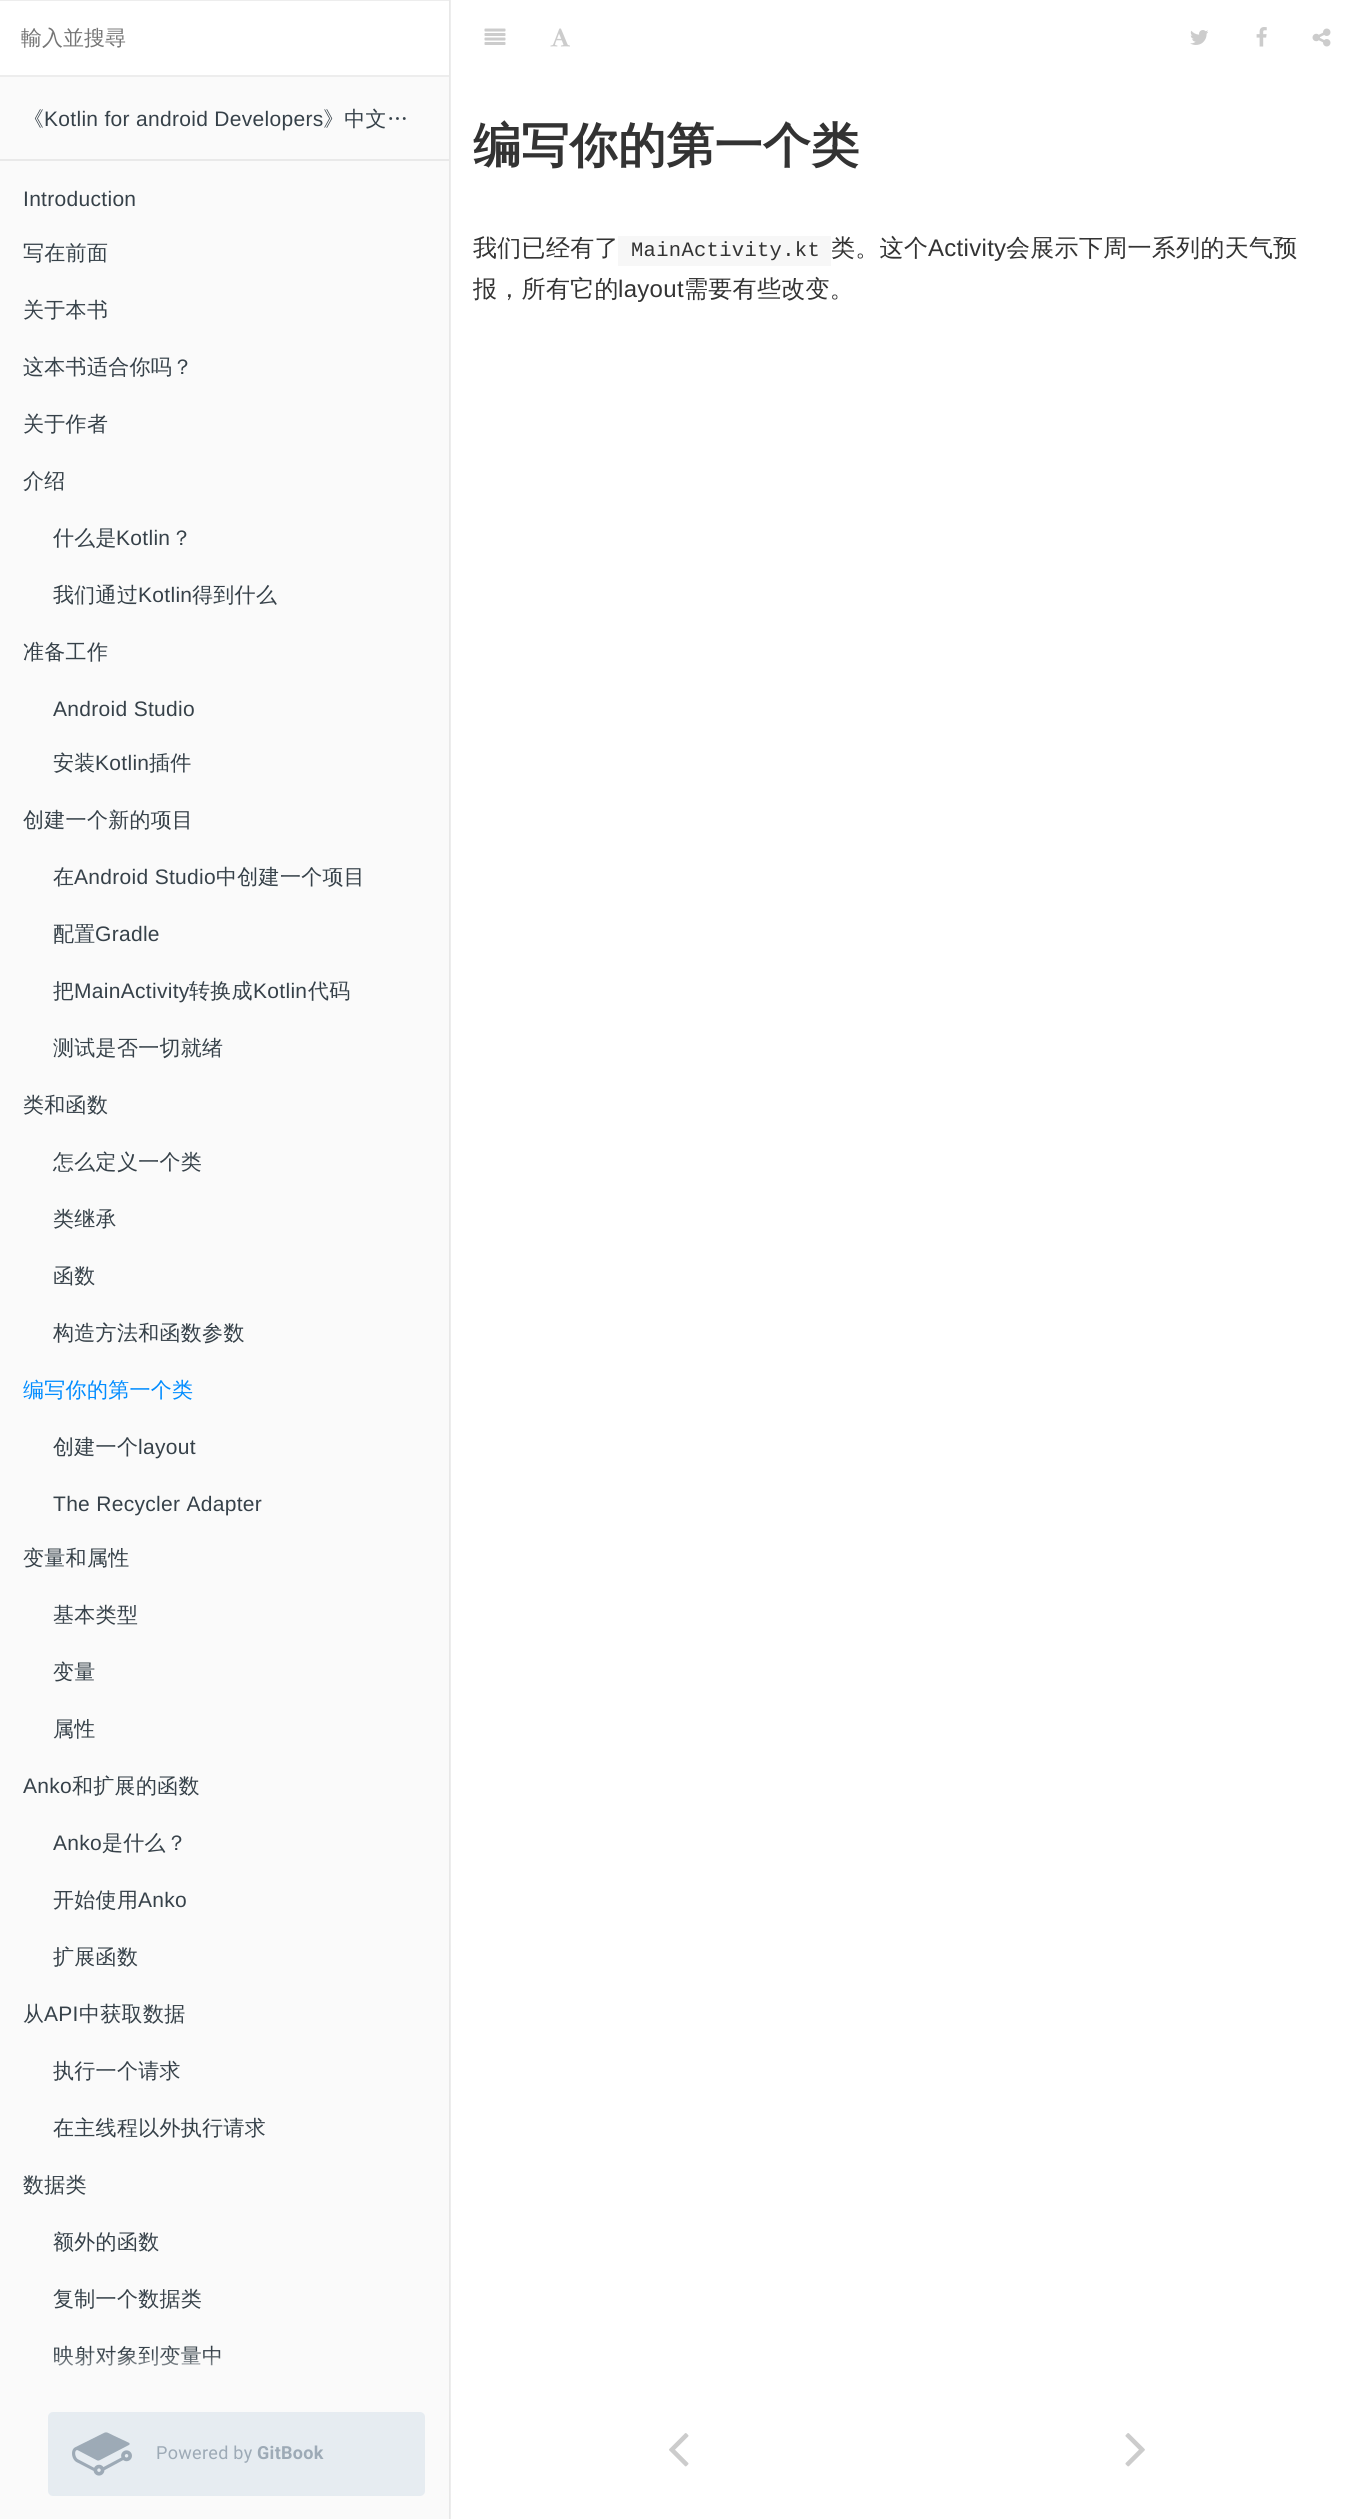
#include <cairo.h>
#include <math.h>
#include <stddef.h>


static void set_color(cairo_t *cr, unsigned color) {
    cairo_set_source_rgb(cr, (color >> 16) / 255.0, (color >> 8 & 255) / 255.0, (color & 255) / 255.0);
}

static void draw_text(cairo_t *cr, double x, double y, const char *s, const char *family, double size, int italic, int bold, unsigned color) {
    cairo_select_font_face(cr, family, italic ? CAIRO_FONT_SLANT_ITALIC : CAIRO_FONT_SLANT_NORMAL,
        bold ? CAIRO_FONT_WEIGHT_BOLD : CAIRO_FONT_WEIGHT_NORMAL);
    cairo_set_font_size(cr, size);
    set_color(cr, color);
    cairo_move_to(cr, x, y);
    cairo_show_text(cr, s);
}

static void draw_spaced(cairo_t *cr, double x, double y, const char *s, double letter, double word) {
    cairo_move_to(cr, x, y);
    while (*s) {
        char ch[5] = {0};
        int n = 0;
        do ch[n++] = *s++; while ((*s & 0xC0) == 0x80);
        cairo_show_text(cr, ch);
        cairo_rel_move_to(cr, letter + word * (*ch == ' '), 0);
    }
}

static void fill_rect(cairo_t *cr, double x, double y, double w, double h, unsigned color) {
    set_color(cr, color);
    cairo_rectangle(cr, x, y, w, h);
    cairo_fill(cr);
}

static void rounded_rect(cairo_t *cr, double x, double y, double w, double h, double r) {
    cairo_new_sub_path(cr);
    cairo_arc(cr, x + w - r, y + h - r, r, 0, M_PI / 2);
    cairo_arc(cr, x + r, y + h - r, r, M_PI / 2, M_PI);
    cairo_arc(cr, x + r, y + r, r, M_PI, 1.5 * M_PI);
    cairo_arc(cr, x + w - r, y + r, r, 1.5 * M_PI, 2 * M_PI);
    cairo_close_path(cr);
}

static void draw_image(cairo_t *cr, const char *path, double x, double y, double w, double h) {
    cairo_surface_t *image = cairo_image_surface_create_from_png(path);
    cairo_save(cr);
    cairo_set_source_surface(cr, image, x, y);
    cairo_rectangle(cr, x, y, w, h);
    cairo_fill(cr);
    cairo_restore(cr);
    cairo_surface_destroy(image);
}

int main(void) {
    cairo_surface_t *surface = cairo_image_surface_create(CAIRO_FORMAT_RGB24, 1365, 2519);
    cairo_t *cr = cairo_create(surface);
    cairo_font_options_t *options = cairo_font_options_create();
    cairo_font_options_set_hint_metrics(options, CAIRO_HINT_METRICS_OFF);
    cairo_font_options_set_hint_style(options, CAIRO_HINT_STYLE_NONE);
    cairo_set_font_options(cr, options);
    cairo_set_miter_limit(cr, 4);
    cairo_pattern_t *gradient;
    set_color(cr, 0xFFFFFF);
    cairo_paint(cr);
    fill_rect(cr, 450, 0, 1, 2519, 0xEDEDED);
    fill_rect(cr, 0, 77, 449, 2442, 0xFAFAFA);
    fill_rect(cr, 449, 0, 1, 2519, 0xE8E8E8);
    fill_rect(cr, 0, 0, 449, 1, 0xEDEDED);
    fill_rect(cr, 0, 75, 449, 2, 0xEDEDED);
    draw_text(cr, 21, 45, "輸入並搜尋", "WenQuanYi Zen Hei Medium", 21, 0, 0, 0x757575);
    set_color(cr, 0x364149);
    draw_spaced(cr, 23, 126, "《", 0.3, 0);
    cairo_select_font_face(cr, "Liberation Sans", CAIRO_FONT_SLANT_NORMAL, CAIRO_FONT_WEIGHT_NORMAL);
    draw_spaced(cr, 44, 126, "Kotlin for android Developers", 0.3, 0);
    cairo_select_font_face(cr, "WenQuanYi Zen Hei Medium", CAIRO_FONT_SLANT_NORMAL, CAIRO_FONT_WEIGHT_NORMAL);
    draw_spaced(cr, 323, 126, "》中文…", 0.3, 0);
    fill_rect(cr, 0, 159, 449, 2, 0xE9E9E9);
    cairo_select_font_face(cr, "Liberation Sans", CAIRO_FONT_SLANT_NORMAL, CAIRO_FONT_WEIGHT_NORMAL);
    set_color(cr, 0x364149);
    draw_spaced(cr, 23, 206, "Introduction", 0.3, 0);
    cairo_select_font_face(cr, "WenQuanYi Zen Hei Medium", CAIRO_FONT_SLANT_NORMAL, CAIRO_FONT_WEIGHT_NORMAL);
    draw_spaced(cr, 23, 260, "写在前面", 0.3, 0);
    draw_spaced(cr, 23, 317, "关于本书", 0.3, 0);
    draw_spaced(cr, 23, 374, "这本书适合你吗？", 0.3, 0);
    draw_spaced(cr, 23, 431, "关于作者", 0.3, 0);
    draw_spaced(cr, 23, 488, "介绍", 0.3, 0);
    draw_spaced(cr, 53, 545, "什么是", 0.3, 0);
    cairo_select_font_face(cr, "Liberation Sans", CAIRO_FONT_SLANT_NORMAL, CAIRO_FONT_WEIGHT_NORMAL);
    draw_spaced(cr, 116, 545, "Kotlin", 0.3, 0);
    cairo_select_font_face(cr, "WenQuanYi Zen Hei Medium", CAIRO_FONT_SLANT_NORMAL, CAIRO_FONT_WEIGHT_NORMAL);
    draw_spaced(cr, 171, 545, "？", 0.3, 0);
    draw_spaced(cr, 53, 602, "我们通过", 0.3, 0);
    cairo_select_font_face(cr, "Liberation Sans", CAIRO_FONT_SLANT_NORMAL, CAIRO_FONT_WEIGHT_NORMAL);
    draw_spaced(cr, 138, 602, "Kotlin", 0.3, 0);
    cairo_select_font_face(cr, "WenQuanYi Zen Hei Medium", CAIRO_FONT_SLANT_NORMAL, CAIRO_FONT_WEIGHT_NORMAL);
    draw_spaced(cr, 192, 602, "得到什么", 0.3, 0);
    draw_spaced(cr, 23, 659, "准备工作", 0.3, 0);
    cairo_select_font_face(cr, "Liberation Sans", CAIRO_FONT_SLANT_NORMAL, CAIRO_FONT_WEIGHT_NORMAL);
    draw_spaced(cr, 53, 716, "Android Studio", 0.3, 0);
    cairo_select_font_face(cr, "WenQuanYi Zen Hei Medium", CAIRO_FONT_SLANT_NORMAL, CAIRO_FONT_WEIGHT_NORMAL);
    draw_spaced(cr, 53, 770, "安装", 0.3, 0);
    cairo_select_font_face(cr, "Liberation Sans", CAIRO_FONT_SLANT_NORMAL, CAIRO_FONT_WEIGHT_NORMAL);
    draw_spaced(cr, 95, 770, "Kotlin", 0.3, 0);
    cairo_select_font_face(cr, "WenQuanYi Zen Hei Medium", CAIRO_FONT_SLANT_NORMAL, CAIRO_FONT_WEIGHT_NORMAL);
    draw_spaced(cr, 149, 770, "插件", 0.3, 0);
    draw_spaced(cr, 23, 827, "创建一个新的项目", 0.3, 0);
    draw_spaced(cr, 53, 884, "在", 0.3, 0);
    cairo_select_font_face(cr, "Liberation Sans", CAIRO_FONT_SLANT_NORMAL, CAIRO_FONT_WEIGHT_NORMAL);
    draw_spaced(cr, 74, 884, "Android Studio", 0.3, 0);
    cairo_select_font_face(cr, "WenQuanYi Zen Hei Medium", CAIRO_FONT_SLANT_NORMAL, CAIRO_FONT_WEIGHT_NORMAL);
    draw_spaced(cr, 216, 884, "中创建一个项目", 0.3, 0);
    draw_spaced(cr, 53, 941, "配置", 0.3, 0);
    cairo_select_font_face(cr, "Liberation Sans", CAIRO_FONT_SLANT_NORMAL, CAIRO_FONT_WEIGHT_NORMAL);
    draw_spaced(cr, 95, 941, "Gradle", 0.3, 0);
    cairo_select_font_face(cr, "WenQuanYi Zen Hei Medium", CAIRO_FONT_SLANT_NORMAL, CAIRO_FONT_WEIGHT_NORMAL);
    draw_spaced(cr, 53, 998, "把", 0.3, 0);
    cairo_select_font_face(cr, "Liberation Sans", CAIRO_FONT_SLANT_NORMAL, CAIRO_FONT_WEIGHT_NORMAL);
    draw_spaced(cr, 74, 998, "MainActivity", 0.3, 0);
    cairo_select_font_face(cr, "WenQuanYi Zen Hei Medium", CAIRO_FONT_SLANT_NORMAL, CAIRO_FONT_WEIGHT_NORMAL);
    draw_spaced(cr, 189, 998, "转换成", 0.3, 0);
    cairo_select_font_face(cr, "Liberation Sans", CAIRO_FONT_SLANT_NORMAL, CAIRO_FONT_WEIGHT_NORMAL);
    draw_spaced(cr, 253, 998, "Kotlin", 0.3, 0);
    cairo_select_font_face(cr, "WenQuanYi Zen Hei Medium", CAIRO_FONT_SLANT_NORMAL, CAIRO_FONT_WEIGHT_NORMAL);
    draw_spaced(cr, 308, 998, "代码", 0.3, 0);
    draw_spaced(cr, 53, 1055, "测试是否一切就绪", 0.3, 0);
    draw_spaced(cr, 23, 1112, "类和函数", 0.3, 0);
    draw_spaced(cr, 53, 1169, "怎么定义一个类", 0.3, 0);
    draw_spaced(cr, 53, 1226, "类继承", 0.3, 0);
    draw_spaced(cr, 53, 1283, "函数", 0.3, 0);
    draw_spaced(cr, 53, 1340, "构造方法和函数参数", 0.3, 0);
    set_color(cr, 0x008CFF);
    draw_spaced(cr, 23, 1397, "编写你的第一个类", 0.3, 0);
    set_color(cr, 0x364149);
    draw_spaced(cr, 53, 1454, "创建一个", 0.3, 0);
    cairo_select_font_face(cr, "Liberation Sans", CAIRO_FONT_SLANT_NORMAL, CAIRO_FONT_WEIGHT_NORMAL);
    draw_spaced(cr, 138, 1454, "layout", 0.3, 0);
    draw_spaced(cr, 53, 1511, "The Recycler Adapter", 0.3, 0);
    cairo_select_font_face(cr, "WenQuanYi Zen Hei Medium", CAIRO_FONT_SLANT_NORMAL, CAIRO_FONT_WEIGHT_NORMAL);
    draw_spaced(cr, 23, 1565, "变量和属性", 0.3, 0);
    draw_spaced(cr, 53, 1622, "基本类型", 0.3, 0);
    draw_spaced(cr, 53, 1679, "变量", 0.3, 0);
    draw_spaced(cr, 53, 1736, "属性", 0.3, 0);
    cairo_select_font_face(cr, "Liberation Sans", CAIRO_FONT_SLANT_NORMAL, CAIRO_FONT_WEIGHT_NORMAL);
    draw_spaced(cr, 23, 1793, "Anko", 0.3, 0);
    cairo_select_font_face(cr, "WenQuanYi Zen Hei Medium", CAIRO_FONT_SLANT_NORMAL, CAIRO_FONT_WEIGHT_NORMAL);
    draw_spaced(cr, 72, 1793, "和扩展的函数", 0.3, 0);
    cairo_select_font_face(cr, "Liberation Sans", CAIRO_FONT_SLANT_NORMAL, CAIRO_FONT_WEIGHT_NORMAL);
    draw_spaced(cr, 53, 1850, "Anko", 0.3, 0);
    cairo_select_font_face(cr, "WenQuanYi Zen Hei Medium", CAIRO_FONT_SLANT_NORMAL, CAIRO_FONT_WEIGHT_NORMAL);
    draw_spaced(cr, 102, 1850, "是什么？", 0.3, 0);
    draw_spaced(cr, 53, 1907, "开始使用", 0.3, 0);
    cairo_select_font_face(cr, "Liberation Sans", CAIRO_FONT_SLANT_NORMAL, CAIRO_FONT_WEIGHT_NORMAL);
    draw_spaced(cr, 138, 1907, "Anko", 0.3, 0);
    cairo_select_font_face(cr, "WenQuanYi Zen Hei Medium", CAIRO_FONT_SLANT_NORMAL, CAIRO_FONT_WEIGHT_NORMAL);
    draw_spaced(cr, 53, 1964, "扩展函数", 0.3, 0);
    draw_spaced(cr, 23, 2021, "从", 0.3, 0);
    cairo_select_font_face(cr, "Liberation Sans", CAIRO_FONT_SLANT_NORMAL, CAIRO_FONT_WEIGHT_NORMAL);
    draw_spaced(cr, 44, 2021, "API", 0.3, 0);
    cairo_select_font_face(cr, "WenQuanYi Zen Hei Medium", CAIRO_FONT_SLANT_NORMAL, CAIRO_FONT_WEIGHT_NORMAL);
    draw_spaced(cr, 79, 2021, "中获取数据", 0.3, 0);
    draw_spaced(cr, 53, 2078, "执行一个请求", 0.3, 0);
    draw_spaced(cr, 53, 2135, "在主线程以外执行请求", 0.3, 0);
    draw_spaced(cr, 23, 2192, "数据类", 0.3, 0);
    draw_spaced(cr, 53, 2249, "额外的函数", 0.3, 0);
    draw_spaced(cr, 53, 2306, "复制一个数据类", 0.3, 0);
    draw_spaced(cr, 53, 2363, "映射对象到变量中", 0.3, 0);
    gradient = cairo_pattern_create_linear(224, 2352, 224, 2388);
    cairo_pattern_add_color_stop_rgba(gradient, 0, 0.98, 0.98, 0.98, 0);
    cairo_pattern_add_color_stop_rgba(gradient, 1, 0.98, 0.98, 0.98, 1);
    cairo_set_source(cr, gradient);
    cairo_pattern_destroy(gradient);
    cairo_rectangle(cr, 53, 2353, 167, 13);
    cairo_fill(cr);
    set_color(cr, 0xE6ECF1);
    rounded_rect(cr, 48, 2412, 377, 84, 5);
    cairo_fill(cr);
    draw_image(cr, "assets/img1.png", 72, 2432, 60, 44);
    cairo_select_font_face(cr, "Roboto", CAIRO_FONT_SLANT_NORMAL, CAIRO_FONT_WEIGHT_NORMAL);
    cairo_set_font_size(cr, 18);
    set_color(cr, 0x9DAAB6);
    draw_spaced(cr, 156, 2459, "Powered by", 0.3, 0);
    cairo_select_font_face(cr, "Roboto", CAIRO_FONT_SLANT_NORMAL, CAIRO_FONT_WEIGHT_BOLD);
    draw_spaced(cr, 257, 2459, "GitBook", 0.3, 0);
    draw_image(cr, "assets/img2.png", 484, 28, 22, 17);
    draw_image(cr, "assets/img3.png", 550, 28, 20, 19);
    draw_image(cr, "assets/img4.png", 1190, 30, 18, 15);
    draw_image(cr, "assets/img5.png", 1256, 27, 11, 20);
    draw_image(cr, "assets/img6.png", 1312, 28, 19, 19);
    cairo_select_font_face(cr, "WenQuanYi Zen Hei", CAIRO_FONT_SLANT_NORMAL, CAIRO_FONT_WEIGHT_BOLD);
    cairo_set_font_size(cr, 48);
    set_color(cr, 0x333333);
    draw_spaced(cr, 473, 162, "编写你的第一个类", 0.3, 0);
    cairo_select_font_face(cr, "WenQuanYi Zen Hei Medium", CAIRO_FONT_SLANT_NORMAL, CAIRO_FONT_WEIGHT_NORMAL);
    cairo_set_font_size(cr, 24);
    draw_spaced(cr, 473, 256, "我们已经有了", 0.3, 0);
    fill_rect(cr, 618, 236, 213, 30, 0xF7F7F7);
    cairo_select_font_face(cr, "Liberation Mono", CAIRO_FONT_SLANT_NORMAL, CAIRO_FONT_WEIGHT_NORMAL);
    cairo_set_font_size(cr, 20.5);
    set_color(cr, 0x333333);
    draw_spaced(cr, 631, 256, "MainActivity.kt", 0.3, 0);
    cairo_select_font_face(cr, "WenQuanYi Zen Hei Medium", CAIRO_FONT_SLANT_NORMAL, CAIRO_FONT_WEIGHT_NORMAL);
    cairo_set_font_size(cr, 24);
    draw_spaced(cr, 831, 256, "类。这个", 0.3, 0);
    cairo_select_font_face(cr, "Liberation Sans", CAIRO_FONT_SLANT_NORMAL, CAIRO_FONT_WEIGHT_NORMAL);
    draw_spaced(cr, 928, 256, "Activity", 0.3, 0);
    cairo_select_font_face(cr, "WenQuanYi Zen Hei Medium", CAIRO_FONT_SLANT_NORMAL, CAIRO_FONT_WEIGHT_NORMAL);
    draw_spaced(cr, 1006, 256, "会展示下周一系列的天气预", 0.3, 0);
    draw_spaced(cr, 473, 297, "报，所有它的", 0.3, 0);
    cairo_select_font_face(cr, "Liberation Sans", CAIRO_FONT_SLANT_NORMAL, CAIRO_FONT_WEIGHT_NORMAL);
    draw_spaced(cr, 618, 297, "layout", 0.3, 0);
    cairo_select_font_face(cr, "WenQuanYi Zen Hei Medium", CAIRO_FONT_SLANT_NORMAL, CAIRO_FONT_WEIGHT_NORMAL);
    draw_spaced(cr, 684, 297, "需要有些改变。", 0.3, 0);
    draw_image(cr, "assets/img7.png", 669, 2433, 20, 34);
    draw_image(cr, "assets/img8.png", 1125, 2433, 20, 34);
    cairo_surface_write_to_png(surface, "output.png");
    cairo_font_options_destroy(options);
    cairo_destroy(cr);
    cairo_surface_destroy(surface);
    return 0;
}
